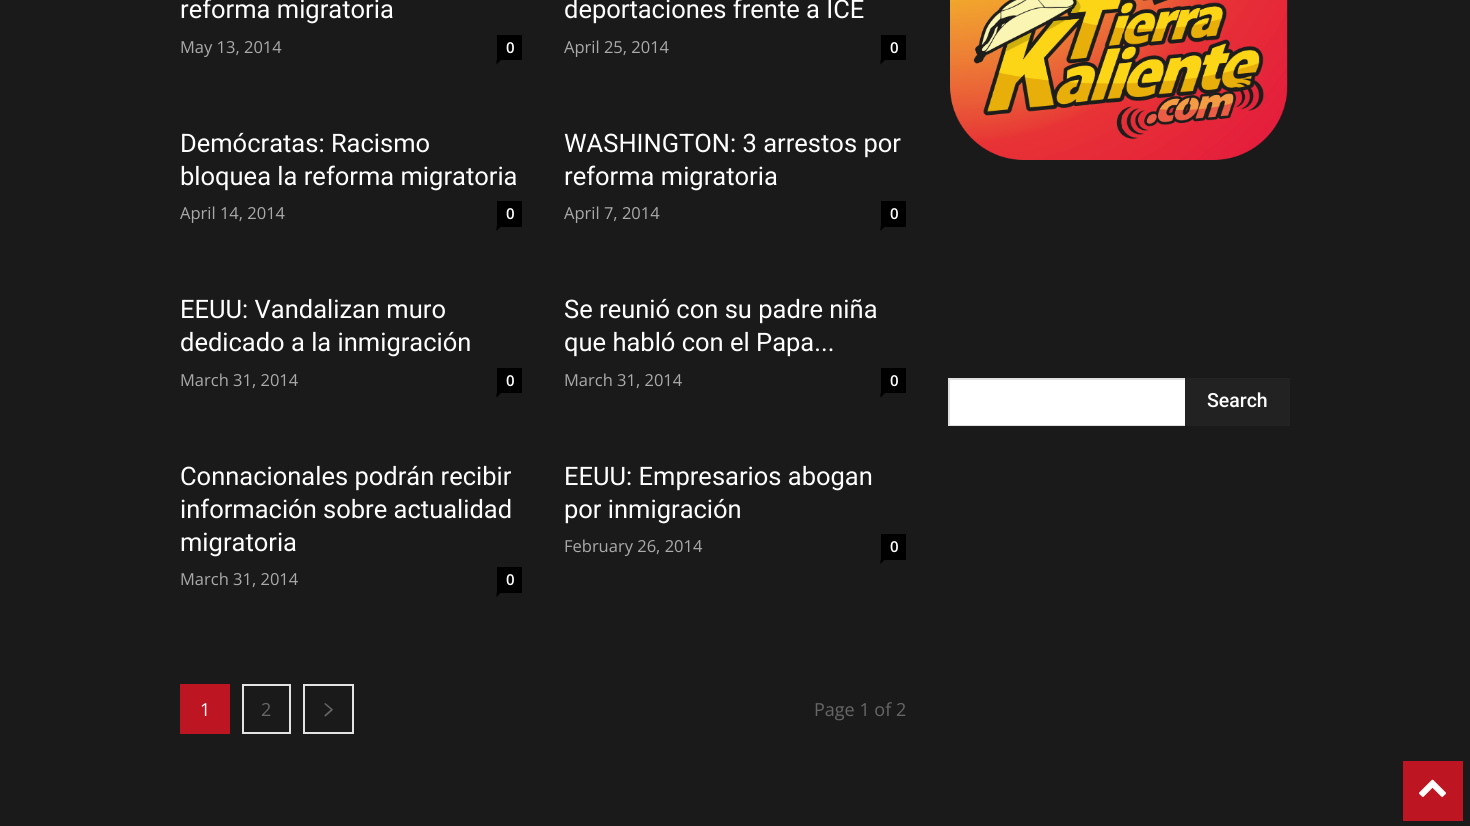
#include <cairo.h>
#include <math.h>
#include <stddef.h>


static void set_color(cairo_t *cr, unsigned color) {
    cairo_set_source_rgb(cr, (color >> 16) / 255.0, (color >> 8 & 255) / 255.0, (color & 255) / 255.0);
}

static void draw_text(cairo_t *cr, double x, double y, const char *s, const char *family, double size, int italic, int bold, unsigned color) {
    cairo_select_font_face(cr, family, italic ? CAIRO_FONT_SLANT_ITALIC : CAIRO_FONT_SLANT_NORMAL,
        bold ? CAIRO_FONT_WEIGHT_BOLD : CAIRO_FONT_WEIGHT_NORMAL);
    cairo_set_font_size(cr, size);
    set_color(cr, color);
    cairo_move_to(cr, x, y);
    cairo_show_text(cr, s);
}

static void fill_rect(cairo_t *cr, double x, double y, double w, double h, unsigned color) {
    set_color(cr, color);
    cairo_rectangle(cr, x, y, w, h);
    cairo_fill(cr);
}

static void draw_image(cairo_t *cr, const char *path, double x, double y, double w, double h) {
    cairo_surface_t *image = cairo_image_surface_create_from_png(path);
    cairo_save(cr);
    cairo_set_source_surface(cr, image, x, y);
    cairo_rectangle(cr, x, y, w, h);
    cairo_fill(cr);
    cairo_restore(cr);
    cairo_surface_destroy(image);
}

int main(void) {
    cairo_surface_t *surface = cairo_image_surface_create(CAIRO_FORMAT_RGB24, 1470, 826);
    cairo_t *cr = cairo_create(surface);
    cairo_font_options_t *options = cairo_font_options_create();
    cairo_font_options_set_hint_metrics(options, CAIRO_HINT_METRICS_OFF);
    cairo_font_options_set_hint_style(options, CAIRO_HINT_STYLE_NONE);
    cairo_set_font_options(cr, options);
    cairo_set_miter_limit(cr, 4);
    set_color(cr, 0x1A1A1A);
    cairo_paint(cr);
    draw_text(cr, 180, 18, "reforma migratoria", "Roboto", 25.5, 0, 0, 0xFFFFFF);
    draw_text(cr, 180, 53, "May 13, 2014", "Open Sans", 16.5, 0, 0, 0xAAAAAA);
    fill_rect(cr, 497, 35, 25, 25, 0x000000);
    draw_text(cr, 506, 53, "0", "Open Sans SemiBold", 15, 0, 0, 0xFFFFFF);
    set_color(cr, 0x000000);
    cairo_new_path(cr);
    cairo_move_to(cr, 496.5, 60);
    cairo_line_to(cr, 501, 60);
    cairo_line_to(cr, 496.5, 64.5);
    cairo_close_path(cr);
    cairo_fill(cr);
    draw_text(cr, 564, 18, "deportaciones frente a ICE", "Roboto", 25.5, 0, 0, 0xFFFFFF);
    draw_text(cr, 564, 53, "April 25, 2014", "Open Sans", 16.5, 0, 0, 0xAAAAAA);
    fill_rect(cr, 881, 35, 25, 25, 0x000000);
    draw_text(cr, 890, 53, "0", "Open Sans SemiBold", 15, 0, 0, 0xFFFFFF);
    set_color(cr, 0x000000);
    cairo_new_path(cr);
    cairo_move_to(cr, 880.5, 60);
    cairo_line_to(cr, 885, 60);
    cairo_line_to(cr, 880.5, 64.5);
    cairo_close_path(cr);
    cairo_fill(cr);
    draw_text(cr, 180, 152, "Demócratas: Racismo", "Roboto", 25.5, 0, 0, 0xFFFFFF);
    draw_text(cr, 180, 185, "bloquea la reforma migratoria", "Roboto", 25.5, 0, 0, 0xFFFFFF);
    draw_text(cr, 180, 219, "April 14, 2014", "Open Sans", 16.5, 0, 0, 0xAAAAAA);
    fill_rect(cr, 497, 201, 25, 26, 0x000000);
    draw_text(cr, 506, 219, "0", "Open Sans SemiBold", 15, 0, 0, 0xFFFFFF);
    set_color(cr, 0x000000);
    cairo_new_path(cr);
    cairo_move_to(cr, 496.5, 226.5);
    cairo_line_to(cr, 501, 226.5);
    cairo_line_to(cr, 496.5, 231);
    cairo_close_path(cr);
    cairo_fill(cr);
    draw_text(cr, 564, 152, "WASHINGTON: 3 arrestos por", "Roboto", 25.5, 0, 0, 0xFFFFFF);
    draw_text(cr, 564, 185, "reforma migratoria", "Roboto", 25.5, 0, 0, 0xFFFFFF);
    draw_text(cr, 564, 219, "April 7, 2014", "Open Sans", 16.5, 0, 0, 0xAAAAAA);
    fill_rect(cr, 881, 201, 25, 26, 0x000000);
    draw_text(cr, 890, 219, "0", "Open Sans SemiBold", 15, 0, 0, 0xFFFFFF);
    set_color(cr, 0x000000);
    cairo_new_path(cr);
    cairo_move_to(cr, 880.5, 226.5);
    cairo_line_to(cr, 885, 226.5);
    cairo_line_to(cr, 880.5, 231);
    cairo_close_path(cr);
    cairo_fill(cr);
    draw_text(cr, 180, 318, "EEUU: Vandalizan muro", "Roboto", 25.5, 0, 0, 0xFFFFFF);
    draw_text(cr, 180, 351, "dedicado a la inmigración", "Roboto", 25.5, 0, 0, 0xFFFFFF);
    draw_text(cr, 180, 386, "March 31, 2014", "Open Sans", 16.5, 0, 0, 0xAAAAAA);
    fill_rect(cr, 497, 368, 25, 25, 0x000000);
    draw_text(cr, 506, 386, "0", "Open Sans SemiBold", 15, 0, 0, 0xFFFFFF);
    set_color(cr, 0x000000);
    cairo_new_path(cr);
    cairo_move_to(cr, 496.5, 393);
    cairo_line_to(cr, 501, 393);
    cairo_line_to(cr, 496.5, 397.5);
    cairo_close_path(cr);
    cairo_fill(cr);
    draw_text(cr, 564, 318, "Se reunió con su padre niña", "Roboto", 25.5, 0, 0, 0xFFFFFF);
    draw_text(cr, 564, 351, "que habló con el Papa...", "Roboto", 25.5, 0, 0, 0xFFFFFF);
    draw_text(cr, 564, 386, "March 31, 2014", "Open Sans", 16.5, 0, 0, 0xAAAAAA);
    fill_rect(cr, 881, 368, 25, 25, 0x000000);
    draw_text(cr, 890, 386, "0", "Open Sans SemiBold", 15, 0, 0, 0xFFFFFF);
    set_color(cr, 0x000000);
    cairo_new_path(cr);
    cairo_move_to(cr, 880.5, 393);
    cairo_line_to(cr, 885, 393);
    cairo_line_to(cr, 880.5, 397.5);
    cairo_close_path(cr);
    cairo_fill(cr);
    draw_text(cr, 180, 485, "Connacionales podrán recibir", "Roboto", 25.5, 0, 0, 0xFFFFFF);
    draw_text(cr, 180, 518, "información sobre actualidad", "Roboto", 25.5, 0, 0, 0xFFFFFF);
    draw_text(cr, 180, 551, "migratoria", "Roboto", 25.5, 0, 0, 0xFFFFFF);
    draw_text(cr, 180, 585, "March 31, 2014", "Open Sans", 16.5, 0, 0, 0xAAAAAA);
    fill_rect(cr, 497, 567, 25, 26, 0x000000);
    draw_text(cr, 506, 585, "0", "Open Sans SemiBold", 15, 0, 0, 0xFFFFFF);
    set_color(cr, 0x000000);
    cairo_new_path(cr);
    cairo_move_to(cr, 496.5, 592.5);
    cairo_line_to(cr, 501, 592.5);
    cairo_line_to(cr, 496.5, 597);
    cairo_close_path(cr);
    cairo_fill(cr);
    draw_text(cr, 564, 485, "EEUU: Empresarios abogan", "Roboto", 25.5, 0, 0, 0xFFFFFF);
    draw_text(cr, 564, 518, "por inmigración", "Roboto", 25.5, 0, 0, 0xFFFFFF);
    draw_text(cr, 564, 552, "February 26, 2014", "Open Sans", 16.5, 0, 0, 0xAAAAAA);
    fill_rect(cr, 881, 534, 25, 26, 0x000000);
    draw_text(cr, 890, 552, "0", "Open Sans SemiBold", 15, 0, 0, 0xFFFFFF);
    set_color(cr, 0x000000);
    cairo_new_path(cr);
    cairo_move_to(cr, 880.5, 559.5);
    cairo_line_to(cr, 885, 559.5);
    cairo_line_to(cr, 880.5, 564);
    cairo_close_path(cr);
    cairo_fill(cr);
    fill_rect(cr, 180, 684, 50, 50, 0xBE1522);
    draw_text(cr, 200, 716, "1", "Open Sans", 18, 0, 0, 0xFFFFFF);
    cairo_rectangle(cr, 243, 685, 47, 48);
    set_color(cr, 0xE3E3E3);
    cairo_stroke(cr);
    draw_text(cr, 261, 716, "2", "Open Sans", 18, 0, 0, 0x666666);
    cairo_rectangle(cr, 304, 685, 49, 48);
    set_color(cr, 0xE3E3E3);
    cairo_stroke(cr);
    draw_image(cr, "assets/img1.png", 324, 703, 9, 14);
    draw_text(cr, 814, 716, "Page 1 of 2", "Open Sans", 18, 0, 0, 0x666666);
    draw_image(cr, "assets/img2.png", 950, 0, 338, 160);
    fill_rect(cr, 950, 380, 235, 45, 0xFFFFFF);
    fill_rect(cr, 948, 378, 237, 2, 0xE1E1E1);
    fill_rect(cr, 948, 425, 237, 1, 0xE1E1E1);
    fill_rect(cr, 948, 378, 2, 48, 0xE1E1E1);
    fill_rect(cr, 1185, 378, 105, 48, 0x222222);
    draw_text(cr, 1207, 407, "Search", "Roboto Medium", 19.5, 0, 0, 0xFFFFFF);
    fill_rect(cr, 1403, 761, 60, 60, 0xBE1522);
    draw_image(cr, "assets/img3.png", 1419, 779, 27, 18);
    cairo_surface_write_to_png(surface, "output.png");
    cairo_font_options_destroy(options);
    cairo_destroy(cr);
    cairo_surface_destroy(surface);
    return 0;
}
